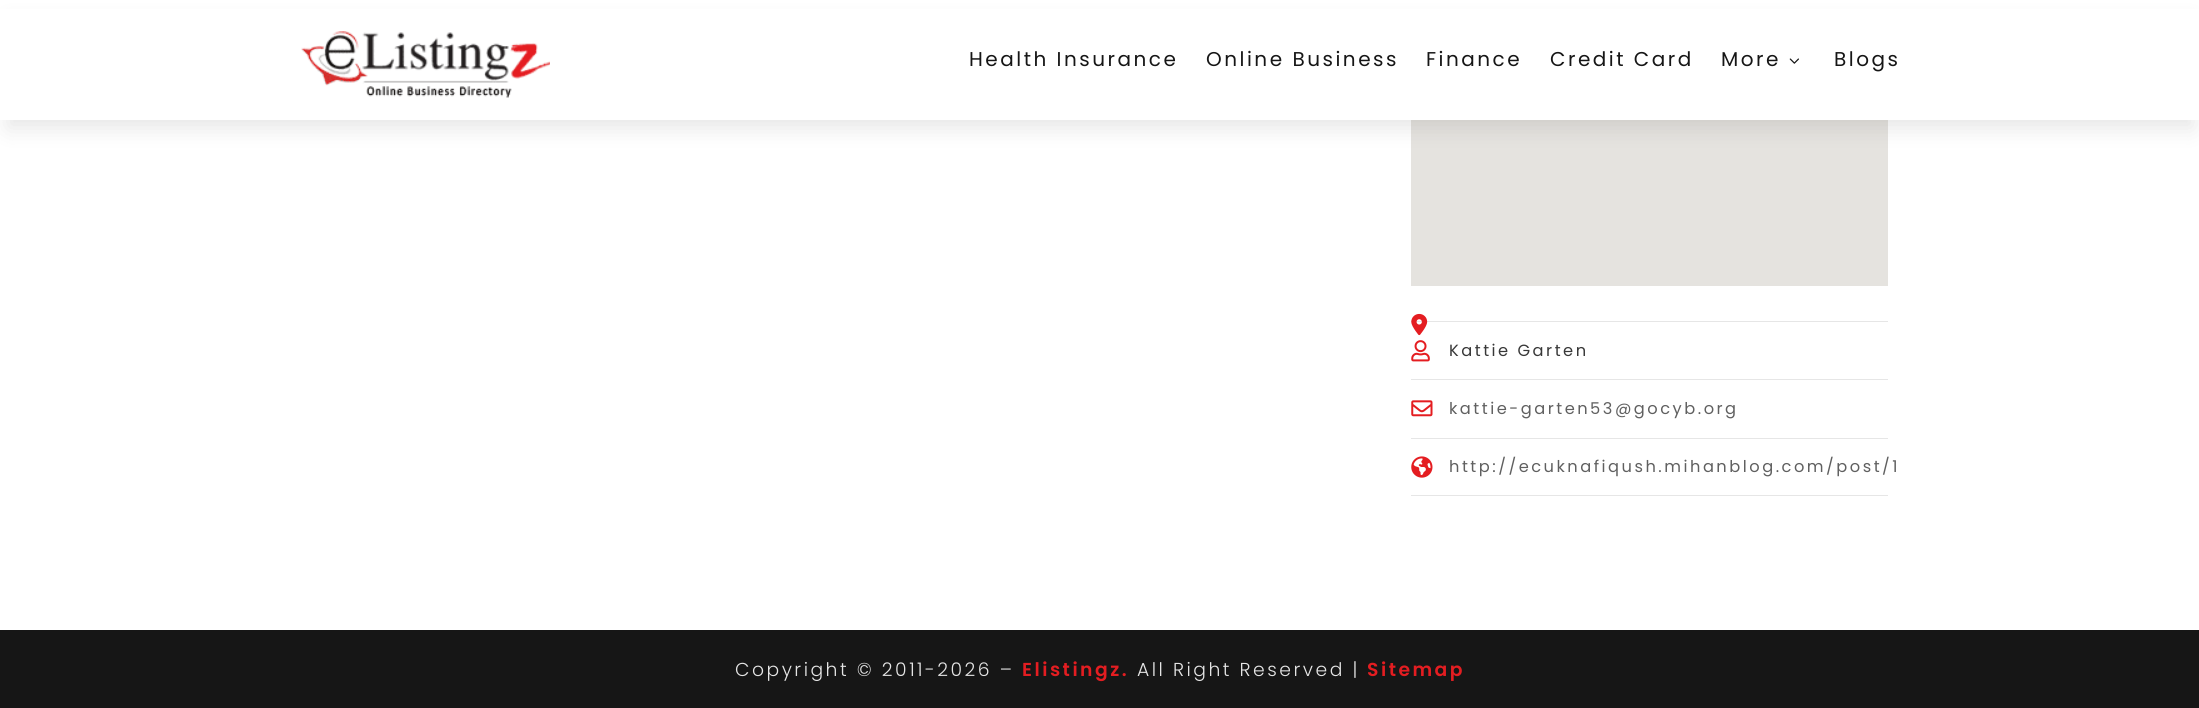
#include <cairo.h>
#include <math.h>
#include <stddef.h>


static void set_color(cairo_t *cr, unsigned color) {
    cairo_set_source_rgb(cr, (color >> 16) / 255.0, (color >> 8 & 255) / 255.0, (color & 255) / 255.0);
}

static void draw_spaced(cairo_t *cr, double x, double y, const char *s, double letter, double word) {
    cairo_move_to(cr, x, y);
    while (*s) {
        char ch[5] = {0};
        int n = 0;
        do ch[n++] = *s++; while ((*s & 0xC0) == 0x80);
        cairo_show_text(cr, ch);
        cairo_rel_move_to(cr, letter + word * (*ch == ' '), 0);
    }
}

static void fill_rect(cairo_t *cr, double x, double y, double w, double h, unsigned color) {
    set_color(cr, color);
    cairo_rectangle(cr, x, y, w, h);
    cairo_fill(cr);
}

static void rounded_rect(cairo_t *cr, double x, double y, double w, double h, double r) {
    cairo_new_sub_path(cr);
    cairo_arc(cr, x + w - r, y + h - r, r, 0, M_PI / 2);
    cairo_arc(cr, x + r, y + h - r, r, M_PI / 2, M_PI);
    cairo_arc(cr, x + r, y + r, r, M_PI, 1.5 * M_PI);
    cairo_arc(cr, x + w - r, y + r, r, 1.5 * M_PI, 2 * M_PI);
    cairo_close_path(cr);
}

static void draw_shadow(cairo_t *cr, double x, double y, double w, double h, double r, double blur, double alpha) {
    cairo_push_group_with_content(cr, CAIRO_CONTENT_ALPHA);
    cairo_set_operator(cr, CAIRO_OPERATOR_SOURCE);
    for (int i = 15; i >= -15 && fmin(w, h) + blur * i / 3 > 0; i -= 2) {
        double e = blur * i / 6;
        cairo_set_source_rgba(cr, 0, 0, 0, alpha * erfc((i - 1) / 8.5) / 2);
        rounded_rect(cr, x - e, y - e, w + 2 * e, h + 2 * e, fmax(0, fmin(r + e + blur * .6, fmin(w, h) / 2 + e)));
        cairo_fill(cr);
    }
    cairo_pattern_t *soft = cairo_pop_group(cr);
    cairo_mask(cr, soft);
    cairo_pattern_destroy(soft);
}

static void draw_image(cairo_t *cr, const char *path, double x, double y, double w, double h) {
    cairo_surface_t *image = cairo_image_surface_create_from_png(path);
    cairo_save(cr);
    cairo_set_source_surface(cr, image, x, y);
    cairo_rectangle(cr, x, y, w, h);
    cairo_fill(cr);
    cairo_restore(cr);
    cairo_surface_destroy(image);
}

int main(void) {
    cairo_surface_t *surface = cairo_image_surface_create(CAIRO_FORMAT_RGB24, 2199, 708);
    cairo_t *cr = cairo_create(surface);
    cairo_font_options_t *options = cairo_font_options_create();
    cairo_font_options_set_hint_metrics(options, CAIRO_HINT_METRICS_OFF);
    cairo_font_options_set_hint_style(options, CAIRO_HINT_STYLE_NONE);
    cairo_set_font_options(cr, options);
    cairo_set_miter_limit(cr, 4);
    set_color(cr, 0xFFFFFF);
    cairo_paint(cr);
    fill_rect(cr, 1411, 120, 477, 166, 0xE5E3DF);
    set_color(cr, 0x000000);
    draw_shadow(cr, 8, 23, 2185, 105, 0, 11, 0.1);
    fill_rect(cr, 0, 9, 2199, 111, 0xFFFFFF);
    draw_image(cr, "assets/img1.png", 301, 31, 249, 67);
    cairo_select_font_face(cr, "Poppins", CAIRO_FONT_SLANT_NORMAL, CAIRO_FONT_WEIGHT_NORMAL);
    cairo_set_font_size(cr, 20);
    set_color(cr, 0x161616);
    draw_spaced(cr, 969, 66, "Health Insurance", 2.5, 0);
    draw_spaced(cr, 1206, 66, "Online Business", 2.5, 0);
    draw_spaced(cr, 1426, 66, "Finance", 2.5, 0);
    draw_spaced(cr, 1550, 66, "Credit Card", 2.5, 0);
    draw_spaced(cr, 1721, 66, "More", 2.5, 0);
    draw_image(cr, "assets/img2.png", 1789, 58, 10, 6);
    draw_spaced(cr, 1834, 66, "Blogs", 2.5, 0);
    fill_rect(cr, 1411, 321, 477, 1, 0xE6E6E6);
    draw_image(cr, "assets/img3.png", 1411, 313, 17, 23);
    fill_rect(cr, 1411, 379, 477, 1, 0xE6E6E6);
    draw_image(cr, "assets/img4.png", 1411, 340, 19, 22);
    cairo_set_font_size(cr, 16.25);
    set_color(cr, 0x383838);
    draw_spaced(cr, 1449, 356, "Kattie Garten", 2.5, 0);
    fill_rect(cr, 1411, 438, 477, 1, 0xE6E6E6);
    draw_image(cr, "assets/img5.png", 1411, 400, 22, 17);
    set_color(cr, 0x606060);
    draw_spaced(cr, 1449, 414, "kattie-garten53@gocyb.org", 2.5, 0);
    fill_rect(cr, 1411, 495, 477, 1, 0xE6E6E6);
    draw_image(cr, "assets/img6.png", 1411, 456, 22, 22);
    set_color(cr, 0x606060);
    draw_spaced(cr, 1449, 472, "http://ecuknafiqush.mihanblog.com/post/1", 2.5, 0);
    fill_rect(cr, 0, 630, 2199, 78, 0x161616);
    cairo_select_font_face(cr, "Poppins Light", CAIRO_FONT_SLANT_NORMAL, CAIRO_FONT_WEIGHT_NORMAL);
    cairo_set_font_size(cr, 18.75);
    set_color(cr, 0xE5E5E5);
    draw_spaced(cr, 735, 676, "Copyright © 2011-2026 –", 2.5, 0);
    cairo_select_font_face(cr, "Poppins SemiBold", CAIRO_FONT_SLANT_NORMAL, CAIRO_FONT_WEIGHT_NORMAL);
    set_color(cr, 0xE41D21);
    draw_spaced(cr, 1022, 676, "Elistingz.", 2.5, 0);
    cairo_select_font_face(cr, "Poppins Light", CAIRO_FONT_SLANT_NORMAL, CAIRO_FONT_WEIGHT_NORMAL);
    set_color(cr, 0xE5E5E5);
    draw_spaced(cr, 1137, 676, "All Right Reserved |", 2.5, 0);
    cairo_select_font_face(cr, "Poppins SemiBold", CAIRO_FONT_SLANT_NORMAL, CAIRO_FONT_WEIGHT_NORMAL);
    set_color(cr, 0xE41D21);
    draw_spaced(cr, 1367, 676, "Sitemap", 2.5, 0);
    cairo_surface_write_to_png(surface, "output.png");
    cairo_font_options_destroy(options);
    cairo_destroy(cr);
    cairo_surface_destroy(surface);
    return 0;
}
